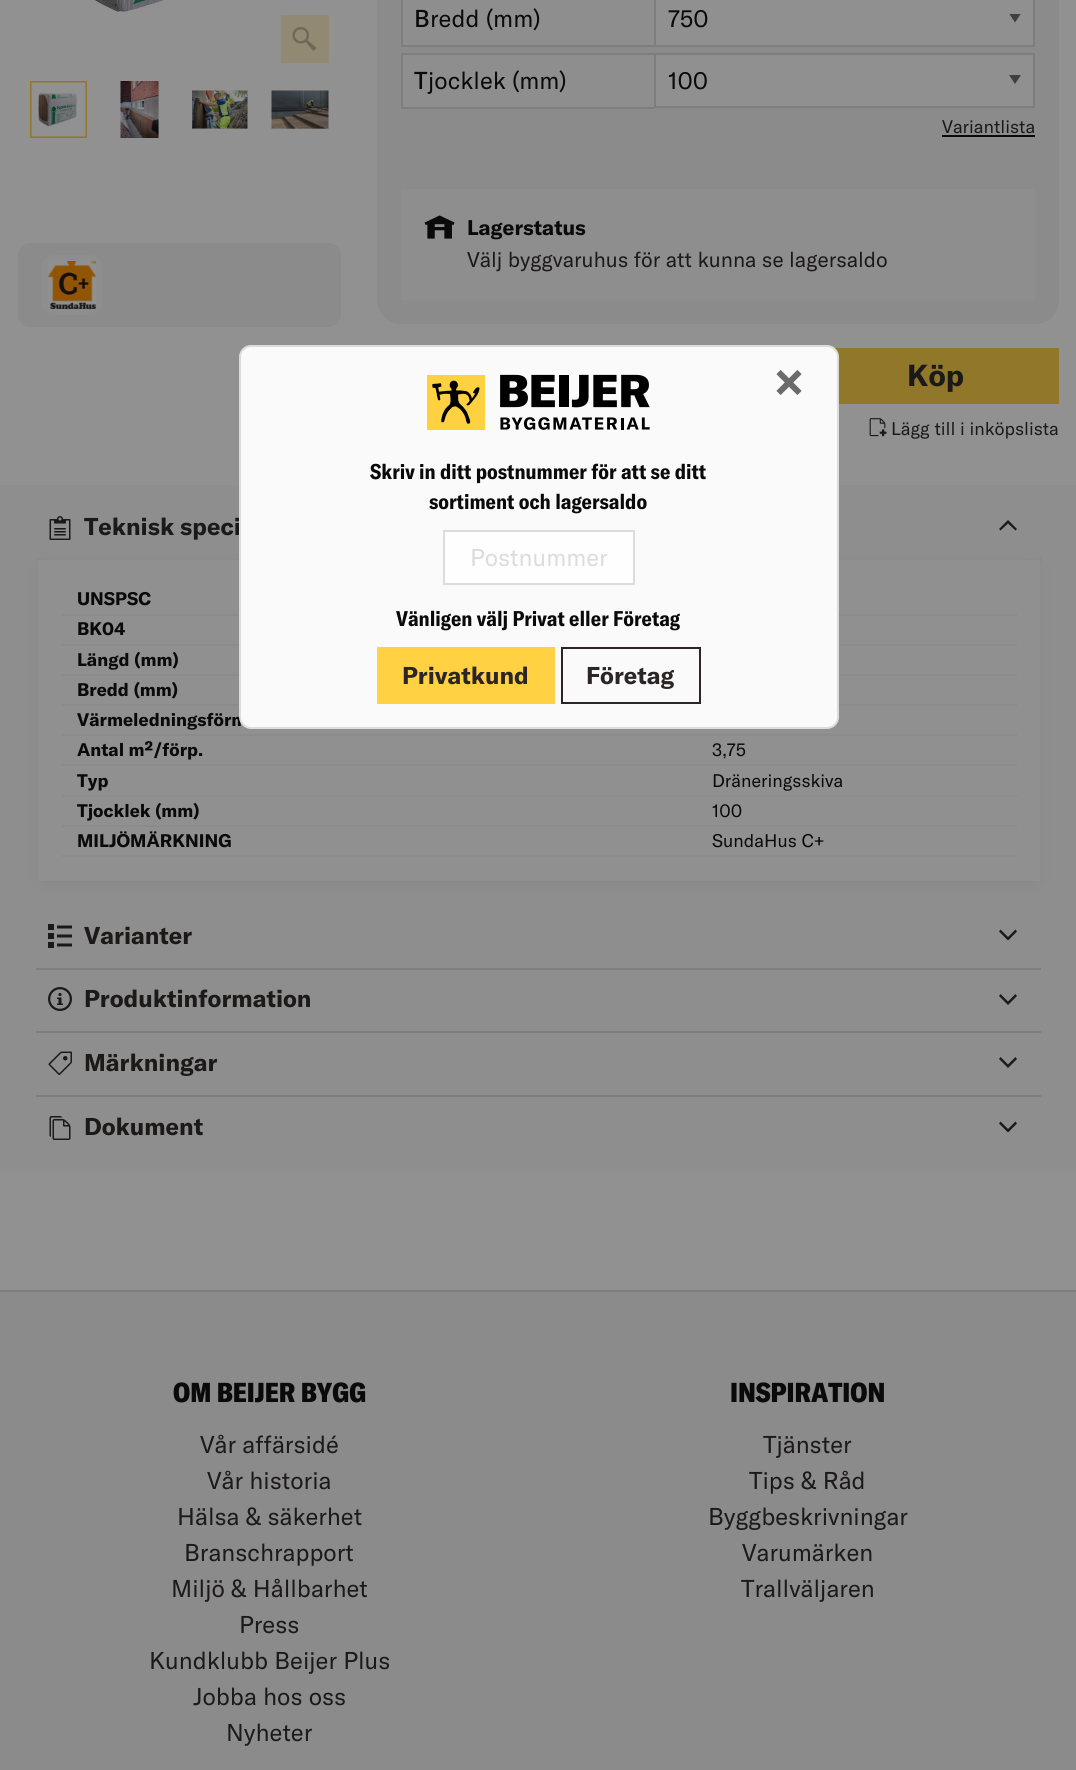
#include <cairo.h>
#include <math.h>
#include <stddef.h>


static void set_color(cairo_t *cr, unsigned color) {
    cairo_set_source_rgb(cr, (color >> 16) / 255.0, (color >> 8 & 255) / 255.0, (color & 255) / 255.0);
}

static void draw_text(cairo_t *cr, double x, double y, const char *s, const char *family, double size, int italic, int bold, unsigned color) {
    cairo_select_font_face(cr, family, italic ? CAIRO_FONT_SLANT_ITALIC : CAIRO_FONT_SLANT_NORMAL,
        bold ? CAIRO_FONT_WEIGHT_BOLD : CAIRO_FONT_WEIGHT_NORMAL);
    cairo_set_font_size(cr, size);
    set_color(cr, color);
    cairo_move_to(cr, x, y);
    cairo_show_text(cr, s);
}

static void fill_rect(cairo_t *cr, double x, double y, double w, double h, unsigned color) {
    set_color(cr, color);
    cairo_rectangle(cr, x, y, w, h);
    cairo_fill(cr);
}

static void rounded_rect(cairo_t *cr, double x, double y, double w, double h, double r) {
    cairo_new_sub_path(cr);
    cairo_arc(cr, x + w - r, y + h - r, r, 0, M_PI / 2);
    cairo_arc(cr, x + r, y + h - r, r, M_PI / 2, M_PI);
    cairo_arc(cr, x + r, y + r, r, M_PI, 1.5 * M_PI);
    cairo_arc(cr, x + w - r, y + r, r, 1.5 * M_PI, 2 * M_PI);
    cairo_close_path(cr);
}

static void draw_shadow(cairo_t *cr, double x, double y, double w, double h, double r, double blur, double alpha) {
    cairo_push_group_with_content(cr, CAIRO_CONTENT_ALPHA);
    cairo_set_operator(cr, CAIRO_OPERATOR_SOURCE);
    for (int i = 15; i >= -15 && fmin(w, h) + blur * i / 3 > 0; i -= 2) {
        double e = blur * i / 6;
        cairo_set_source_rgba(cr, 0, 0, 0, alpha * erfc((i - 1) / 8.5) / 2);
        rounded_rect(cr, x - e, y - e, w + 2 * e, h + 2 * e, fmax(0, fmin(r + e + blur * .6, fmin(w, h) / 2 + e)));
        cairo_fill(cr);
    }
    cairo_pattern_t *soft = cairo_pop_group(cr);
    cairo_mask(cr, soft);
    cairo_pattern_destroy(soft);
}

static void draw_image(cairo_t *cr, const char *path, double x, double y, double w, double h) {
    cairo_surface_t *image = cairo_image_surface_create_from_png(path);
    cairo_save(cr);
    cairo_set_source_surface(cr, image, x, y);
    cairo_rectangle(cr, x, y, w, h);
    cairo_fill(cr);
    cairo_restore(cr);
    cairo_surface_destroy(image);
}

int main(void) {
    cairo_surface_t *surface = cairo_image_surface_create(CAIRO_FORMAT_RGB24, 1076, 1770);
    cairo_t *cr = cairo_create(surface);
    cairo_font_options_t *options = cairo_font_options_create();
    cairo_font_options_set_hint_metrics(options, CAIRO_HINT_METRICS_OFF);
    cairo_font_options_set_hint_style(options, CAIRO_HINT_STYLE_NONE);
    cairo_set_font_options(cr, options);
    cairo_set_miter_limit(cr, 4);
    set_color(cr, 0x919191);
    cairo_paint(cr);
    draw_image(cr, "assets/img1.png", 94, 0, 70, 12);
    fill_rect(cr, 281, 15, 48, 48, 0x918972);
    draw_image(cr, "assets/img2.png", 292, 27, 25, 24);
    cairo_rectangle(cr, 31, 82, 55, 55);
    set_color(cr, 0x917729);
    cairo_stroke(cr);
    draw_image(cr, "assets/img3.png", 31, 82, 55, 55);
    draw_image(cr, "assets/img4.png", 120, 81, 39, 57);
    draw_image(cr, "assets/img5.png", 192, 90, 56, 39);
    draw_image(cr, "assets/img6.png", 271, 90, 58, 39);
    set_color(cr, 0x8B8B8B);
    rounded_rect(cr, 18, 243, 323, 84, 12);
    cairo_fill(cr);
    set_color(cr, 0x8E8E8E);
    rounded_rect(cr, 42, 255, 60, 60, 12);
    cairo_fill(cr);
    draw_image(cr, "assets/img7.png", 48, 261, 48, 48);
    set_color(cr, 0x8B8B8B);
    rounded_rect(cr, 377, -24, 682, 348, 24);
    cairo_fill(cr);
    fill_rect(cr, 403, 0, 251, 45, 0x8E8E8E);
    fill_rect(cr, 401, 45, 253, 2, 0x7E7E7E);
    fill_rect(cr, 401, 0, 2, 47, 0x7E7E7E);
    draw_text(cr, 414, 27, "B", "Noto Sans Medium", 24, 0, 0, 0x0A0A0A);
    draw_text(cr, 430, 27, "redd (mm)", "GT America", 24, 0, 0, 0x0A0A0A);
    fill_rect(cr, 656, 0, 377, 45, 0x909090);
    cairo_save(cr);
    cairo_rectangle(cr, 1008, 14, 14, 9);
    cairo_clip(cr);
    set_color(cr, 0x3F3F3F);
    cairo_new_path(cr);
    cairo_move_to(cr, 1009, 13.5);
    cairo_line_to(cr, 1021, 13.5);
    cairo_line_to(cr, 1015, 22.5);
    cairo_close_path(cr);
    cairo_fill(cr);
    cairo_restore(cr);
    cairo_rectangle(cr, 655, -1, 379, 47);
    set_color(cr, 0x7E7E7E);
    cairo_stroke(cr);
    draw_text(cr, 668, 27, "750", "GT America", 24, 0, 0, 0x0A0A0A);
    fill_rect(cr, 403, 55, 251, 52, 0x8E8E8E);
    fill_rect(cr, 401, 53, 253, 2, 0x7E7E7E);
    fill_rect(cr, 401, 107, 253, 2, 0x7E7E7E);
    fill_rect(cr, 401, 53, 2, 55, 0x7E7E7E);
    draw_text(cr, 414, 89, "T", "Noto Sans Medium", 24, 0, 0, 0x0A0A0A);
    draw_text(cr, 428, 89, "jocklek (mm)", "GT America", 24, 0, 0, 0x0A0A0A);
    fill_rect(cr, 656, 55, 377, 51, 0x909090);
    set_color(cr, 0x3F3F3F);
    cairo_new_path(cr);
    cairo_move_to(cr, 1009, 75);
    cairo_line_to(cr, 1021, 75);
    cairo_line_to(cr, 1015, 84);
    cairo_close_path(cr);
    cairo_fill(cr);
    cairo_rectangle(cr, 655, 54, 379, 53);
    set_color(cr, 0x7E7E7E);
    cairo_stroke(cr);
    draw_text(cr, 668, 89, "100", "GT America", 24, 0, 0, 0x0A0A0A);
    draw_text(cr, 942, 133, "Variantlista", "GT America", 18, 0, 0, 0x1C1919);
    fill_rect(cr, 942, 135, 93, 2, 0x0A0A0A);
    fill_rect(cr, 401, 189, 634, 111, 0x8E8E8E);
    draw_image(cr, "assets/img8.png", 424, 215, 31, 24);
    draw_text(cr, 467, 235, "Lagerstatus", "GT America", 21, 0, 1, 0x0A0A0A);
    draw_text(cr, 467, 267, "Välj byggvaruhus för att kunna se lagersaldo", "GT America", 21, 0, 0, 0x1C1919);
    fill_rect(cr, 834, 348, 225, 56, 0x917729);
    draw_text(cr, 907, 386, "Köp", "GT America", 30, 0, 1, 0x1C1919);
    draw_image(cr, "assets/img9.png", 869, 418, 18, 19);
    draw_text(cr, 891, 435, "Lägg till i inköpslista", "GT America", 18, 0, 0, 0x1C1919);
    fill_rect(cr, 0, 485, 1076, 685, 0x8E8E8E);
    draw_image(cr, "assets/img10.png", 49, 516, 22, 24);
    draw_text(cr, 84, 535, "Teknisk speci", "GT America", 24, 0, 1, 0x1C1919);
    cairo_new_path(cr);
    cairo_move_to(cr, 999, 529);
    cairo_line_to(cr, 1000.5, 530.5);
    cairo_line_to(cr, 1008, 523.5);
    cairo_line_to(cr, 1015.5, 530.5);
    cairo_line_to(cr, 1017, 529);
    cairo_line_to(cr, 1008, 520);
    cairo_close_path(cr);
    cairo_fill(cr);
    set_color(cr, 0x7E7E7E);
    draw_shadow(cr, 44, 570, 990, 308, 0, 7.5, 1);
    fill_rect(cr, 38, 560, 1002, 321, 0x909090);
    fill_rect(cr, 36, 558, 1005, 2, 0x8B8B8B);
    fill_rect(cr, 1040, 558, 2, 5, 0x8B8B8B);
    fill_rect(cr, 36, 558, 2, 5, 0x8B8B8B);
    fill_rect(cr, 62, 614, 955, 2, 0x8B8B8B);
    draw_text(cr, 77, 605, "UNSPSC", "GT America", 18, 0, 1, 0x0A0A0A);
    fill_rect(cr, 62, 644, 955, 2, 0x8B8B8B);
    draw_text(cr, 77, 635, "BK04", "GT America", 18, 0, 1, 0x0A0A0A);
    fill_rect(cr, 62, 674, 955, 2, 0x8B8B8B);
    draw_text(cr, 77, 666, "Längd (mm)", "GT America", 18, 0, 1, 0x0A0A0A);
    fill_rect(cr, 62, 704, 955, 2, 0x8B8B8B);
    draw_text(cr, 77, 696, "Bredd (mm)", "GT America", 18, 0, 1, 0x0A0A0A);
    fill_rect(cr, 62, 734, 955, 2, 0x8B8B8B);
    draw_text(cr, 77, 726, "Värmeledningsförm", "GT America", 18, 0, 1, 0x0A0A0A);
    fill_rect(cr, 62, 764, 955, 2, 0x8B8B8B);
    draw_text(cr, 77, 756, "Antal m²/förp.", "GT America", 18, 0, 1, 0x0A0A0A);
    draw_text(cr, 712, 756, "3,75", "GT America", 18, 0, 0, 0x0A0A0A);
    fill_rect(cr, 62, 795, 955, 2, 0x8B8B8B);
    draw_text(cr, 77, 787, "Typ", "GT America", 18, 0, 1, 0x0A0A0A);
    draw_text(cr, 712, 787, "Dräneringsskiva", "GT America", 18, 0, 0, 0x0A0A0A);
    fill_rect(cr, 62, 825, 955, 2, 0x8B8B8B);
    draw_text(cr, 77, 817, "Tjocklek (mm)", "GT America", 18, 0, 1, 0x0A0A0A);
    draw_text(cr, 712, 817, "100", "GT America", 18, 0, 0, 0x0A0A0A);
    fill_rect(cr, 62, 855, 955, 2, 0x8B8B8B);
    draw_text(cr, 77, 847, "MILJÖMÄRKNING", "GT America", 18, 0, 1, 0x0A0A0A);
    draw_text(cr, 712, 847, "SundaHus C+", "GT America", 18, 0, 0, 0x0A0A0A);
    fill_rect(cr, 36, 968, 1005, 2, 0x7E7E7E);
    draw_image(cr, "assets/img11.png", 48, 924, 24, 24);
    draw_text(cr, 84, 944, "Varianter", "GT America", 24, 0, 1, 0x1C1919);
    cairo_new_path(cr);
    cairo_move_to(cr, 1017, 931.5);
    cairo_line_to(cr, 1015.5, 929.5);
    cairo_line_to(cr, 1008, 937);
    cairo_line_to(cr, 1000.5, 929.5);
    cairo_line_to(cr, 999, 931.5);
    cairo_line_to(cr, 1008, 940.5);
    cairo_close_path(cr);
    cairo_fill(cr);
    fill_rect(cr, 36, 1031, 1005, 2, 0x7E7E7E);
    draw_image(cr, "assets/img12.png", 48, 987, 24, 24);
    draw_text(cr, 84, 1007, "Produktinformation", "GT America", 24, 0, 1, 0x1C1919);
    cairo_new_path(cr);
    cairo_move_to(cr, 1017, 996);
    cairo_line_to(cr, 1015.5, 994);
    cairo_line_to(cr, 1008, 1001.5);
    cairo_line_to(cr, 1000.5, 994);
    cairo_line_to(cr, 999, 996);
    cairo_line_to(cr, 1008, 1005);
    cairo_close_path(cr);
    cairo_fill(cr);
    fill_rect(cr, 36, 1095, 1005, 2, 0x7E7E7E);
    draw_image(cr, "assets/img13.png", 48, 1051, 24, 24);
    draw_text(cr, 84, 1071, "Märkningar", "GT America", 24, 0, 1, 0x1C1919);
    cairo_new_path(cr);
    cairo_move_to(cr, 1017, 1059);
    cairo_line_to(cr, 1015.5, 1057);
    cairo_line_to(cr, 1008, 1064.5);
    cairo_line_to(cr, 1000.5, 1057);
    cairo_line_to(cr, 999, 1059);
    cairo_line_to(cr, 1008, 1068);
    cairo_close_path(cr);
    cairo_fill(cr);
    draw_image(cr, "assets/img14.png", 49, 1116, 22, 24);
    draw_text(cr, 84, 1135, "Dokument", "GT America", 24, 0, 1, 0x1C1919);
    cairo_new_path(cr);
    cairo_move_to(cr, 1017, 1123.5);
    cairo_line_to(cr, 1015.5, 1121.5);
    cairo_line_to(cr, 1008, 1129);
    cairo_line_to(cr, 1000.5, 1121.5);
    cairo_line_to(cr, 999, 1123.5);
    cairo_line_to(cr, 1008, 1132.5);
    cairo_close_path(cr);
    cairo_fill(cr);
    fill_rect(cr, 0, 1292, 1076, 478, 0x8B8B8B);
    fill_rect(cr, 0, 1290, 1076, 2, 0x7E7E7E);
    draw_text(cr, 173, 1402, "OM BEIJER BYGG", "GT America Black", 27, 0, 0, 0x0A0A0A);
    draw_text(cr, 200, 1453, "Vår affärsidé", "GT America", 24, 0, 0, 0x1C1919);
    draw_text(cr, 207, 1489, "Vår historia", "GT America", 24, 0, 0, 0x1C1919);
    draw_text(cr, 177, 1525, "Hälsa & säkerhet", "GT America", 24, 0, 0, 0x1C1919);
    draw_text(cr, 184, 1561, "Branschrapport", "GT America", 24, 0, 0, 0x1C1919);
    draw_text(cr, 171, 1597, "Miljö & Hållbarhet", "GT America", 24, 0, 0, 0x1C1919);
    draw_text(cr, 239, 1633, "Press", "GT America", 24, 0, 0, 0x1C1919);
    draw_text(cr, 149, 1669, "Kundklubb Beijer Plus", "GT America", 24, 0, 0, 0x1C1919);
    draw_text(cr, 193, 1705, "Jobba hos oss", "GT America", 24, 0, 0, 0x1C1919);
    draw_text(cr, 226, 1741, "Nyheter", "GT America", 24, 0, 0, 0x1C1919);
    draw_text(cr, 730, 1402, "INSPIRATION", "GT America Black", 27, 0, 0, 0x0A0A0A);
    draw_text(cr, 763, 1453, "Tjänster", "GT America", 24, 0, 0, 0x1C1919);
    draw_text(cr, 749, 1489, "Tips & Råd", "GT America", 24, 0, 0, 0x1C1919);
    draw_text(cr, 708, 1525, "Byggbeskrivningar", "GT America", 24, 0, 0, 0x1C1919);
    draw_text(cr, 742, 1561, "Varumärken", "GT America", 24, 0, 0, 0x1C1919);
    draw_text(cr, 741, 1597, "Trallväljaren", "GT America", 24, 0, 0, 0x1C1919);
    set_color(cr, 0xFAFAFA);
    rounded_rect(cr, 240, 346, 598, 382, 11);
    cairo_fill_preserve(cr);
    set_color(cr, 0xDCDCDC);
    cairo_stroke(cr);
    draw_image(cr, "assets/img15.png", 776, 370, 26, 25);
    draw_image(cr, "assets/img16.png", 427, 374, 223, 56);
    draw_text(cr, 370, 479, "Skriv in ditt postnummer för att se ditt", "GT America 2", 21, 0, 1, 0x0A0A0A);
    draw_text(cr, 429, 509, "sortiment och lagersaldo", "GT America 2", 21, 0, 1, 0x0A0A0A);
    set_color(cr, 0xFEFEFE);
    cairo_rectangle(cr, 444, 531, 190, 53);
    cairo_fill_preserve(cr);
    set_color(cr, 0xDCDCDC);
    cairo_stroke(cr);
    draw_text(cr, 470, 566, "Postnummer", "GT America", 24, 0, 0, 0xDCDCDC);
    draw_text(cr, 396, 626, "Vänligen välj Privat eller Företag", "GT America 2", 21, 0, 1, 0x0A0A0A);
    fill_rect(cr, 377, 647, 178, 57, 0xFFD143);
    draw_text(cr, 402, 684, "Privatkund", "GT America", 24, 0, 1, 0x2B2526);
    cairo_rectangle(cr, 562, 648, 138, 55);
    cairo_stroke(cr);
    draw_text(cr, 586, 684, "Företag", "GT America", 24, 0, 1, 0x2B2526);
    cairo_surface_write_to_png(surface, "output.png");
    cairo_font_options_destroy(options);
    cairo_destroy(cr);
    cairo_surface_destroy(surface);
    return 0;
}
